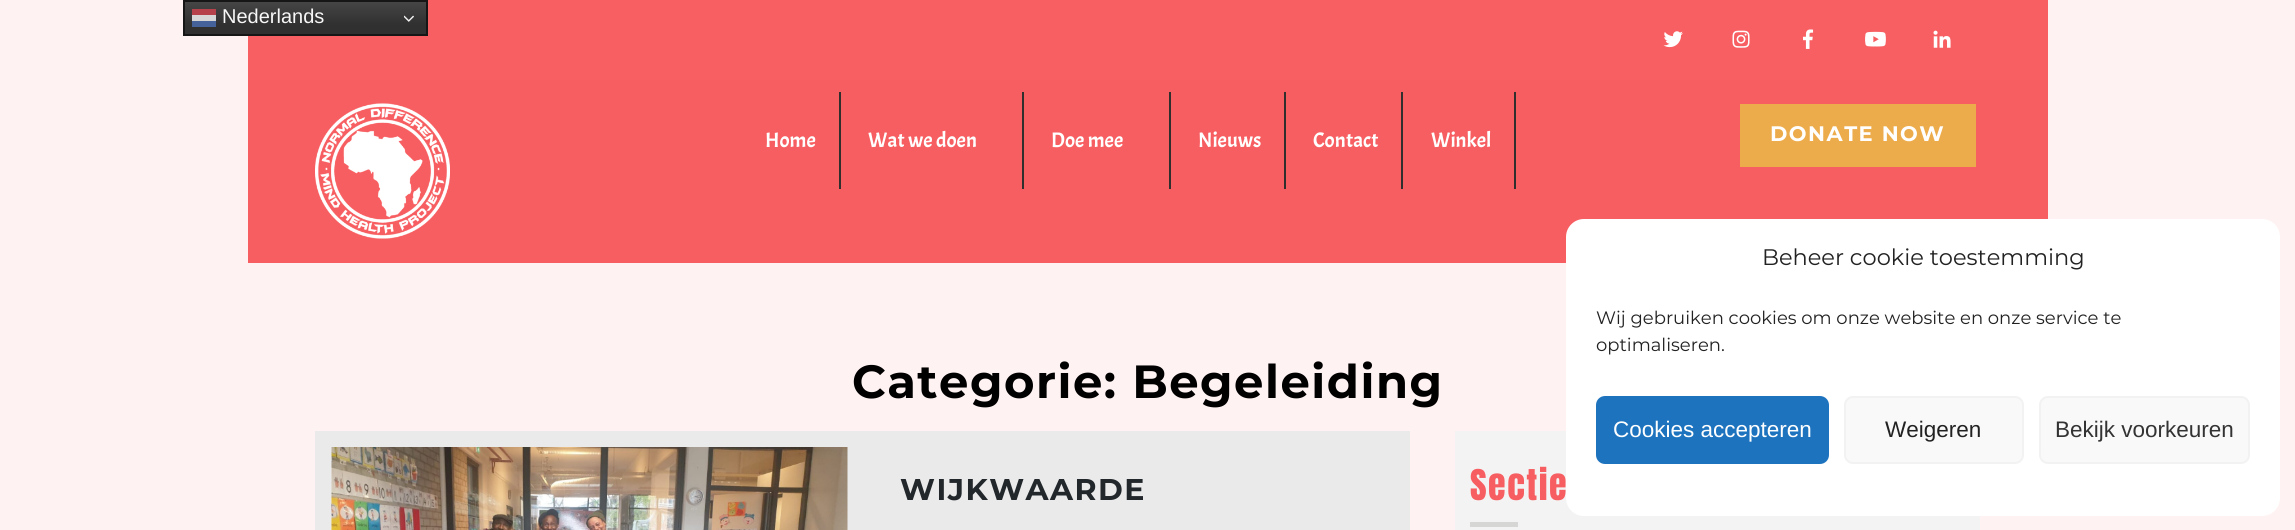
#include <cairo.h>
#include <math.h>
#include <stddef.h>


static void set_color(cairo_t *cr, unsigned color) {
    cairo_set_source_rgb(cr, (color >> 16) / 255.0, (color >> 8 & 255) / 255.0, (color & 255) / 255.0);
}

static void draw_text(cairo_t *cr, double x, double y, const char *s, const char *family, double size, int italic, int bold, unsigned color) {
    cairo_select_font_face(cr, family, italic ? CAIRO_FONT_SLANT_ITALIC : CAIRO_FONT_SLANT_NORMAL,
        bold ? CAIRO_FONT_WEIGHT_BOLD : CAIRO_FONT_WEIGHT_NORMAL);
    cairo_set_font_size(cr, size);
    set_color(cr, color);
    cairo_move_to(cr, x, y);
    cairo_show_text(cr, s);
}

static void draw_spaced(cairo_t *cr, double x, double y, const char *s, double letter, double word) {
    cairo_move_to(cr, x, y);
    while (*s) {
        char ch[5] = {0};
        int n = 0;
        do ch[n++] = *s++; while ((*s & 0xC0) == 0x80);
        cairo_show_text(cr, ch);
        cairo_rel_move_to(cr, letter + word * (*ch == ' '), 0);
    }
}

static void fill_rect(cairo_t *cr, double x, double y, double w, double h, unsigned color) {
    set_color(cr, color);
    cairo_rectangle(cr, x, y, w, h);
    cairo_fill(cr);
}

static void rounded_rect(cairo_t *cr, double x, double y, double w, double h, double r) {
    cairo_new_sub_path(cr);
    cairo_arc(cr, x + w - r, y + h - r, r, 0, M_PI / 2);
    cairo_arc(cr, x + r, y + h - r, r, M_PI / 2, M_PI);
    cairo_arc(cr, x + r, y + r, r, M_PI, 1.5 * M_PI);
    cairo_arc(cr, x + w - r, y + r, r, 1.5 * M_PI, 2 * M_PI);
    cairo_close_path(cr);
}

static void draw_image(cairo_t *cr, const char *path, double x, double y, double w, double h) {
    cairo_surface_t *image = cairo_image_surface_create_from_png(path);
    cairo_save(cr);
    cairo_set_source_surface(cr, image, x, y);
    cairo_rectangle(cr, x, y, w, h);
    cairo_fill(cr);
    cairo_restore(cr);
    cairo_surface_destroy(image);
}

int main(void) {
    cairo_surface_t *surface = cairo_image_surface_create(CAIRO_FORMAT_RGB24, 2295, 530);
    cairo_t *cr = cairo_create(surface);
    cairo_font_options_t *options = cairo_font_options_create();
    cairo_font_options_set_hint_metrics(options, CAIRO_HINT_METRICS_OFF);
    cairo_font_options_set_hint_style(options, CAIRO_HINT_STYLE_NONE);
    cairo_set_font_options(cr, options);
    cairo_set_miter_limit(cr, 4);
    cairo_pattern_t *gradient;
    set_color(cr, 0xFFF2F2);
    cairo_paint(cr);
    fill_rect(cr, 248, 0, 1800, 80, 0xF75F62);
    gradient = cairo_pattern_create_linear(305, 0, 305, 36);
    cairo_pattern_add_color_stop_rgba(gradient, 0, 0.278, 0.278, 0.278, 1);
    cairo_pattern_add_color_stop_rgba(gradient, 0.7, 0.188, 0.188, 0.188, 1);
    cairo_set_source(cr, gradient);
    cairo_pattern_destroy(gradient);
    cairo_rectangle(cr, 185, 2, 241, 32);
    cairo_fill(cr);
    gradient = cairo_pattern_create_linear(305, 0, 305, 36);
    cairo_pattern_add_color_stop_rgba(gradient, 0, 0.855, 0.855, 0.855, 1);
    cairo_pattern_add_color_stop_rgba(gradient, 0.7, 0.839, 0.839, 0.839, 1);
    cairo_set_source(cr, gradient);
    cairo_pattern_destroy(gradient);
    cairo_rectangle(cr, 192, 15, 24, 6);
    cairo_fill(cr);
    cairo_rectangle(cr, 184, 1, 243, 34);
    set_color(cr, 0x161616);
    cairo_stroke(cr);
    fill_rect(cr, 192, 9, 24, 6, 0xB6424B);
    draw_text(cr, 222, 23, "Nederlands", "Liberation Sans", 20, 0, 0, 0xF7F7F7);
    draw_image(cr, "assets/img1.png", 404, 15, 10, 7);
    fill_rect(cr, 192, 21, 24, 6, 0x45639A);
    draw_image(cr, "assets/img2.png", 1663, 31, 20, 17);
    draw_image(cr, "assets/img3.png", 1732, 30, 18, 18);
    draw_image(cr, "assets/img4.png", 1803, 29, 11, 20);
    draw_image(cr, "assets/img5.png", 1865, 31, 21, 16);
    draw_image(cr, "assets/img6.png", 1933, 30, 18, 18);
    fill_rect(cr, 248, 80, 1800, 183, 0xF75E61);
    draw_image(cr, "assets/img7.png", 315, 103, 135, 136);
    fill_rect(cr, 839, 92, 2, 97, 0x302F2E);
    draw_text(cr, 765, 147, "Home", "Acme", 21, 0, 0, 0xFFFFFF);
    fill_rect(cr, 1022, 92, 2, 97, 0x302F2E);
    draw_text(cr, 868, 147, "Wat we doen", "Acme", 21, 0, 0, 0xFFFFFF);
    fill_rect(cr, 1169, 92, 2, 97, 0x302F2E);
    draw_text(cr, 1051, 147, "Doe mee", "Acme", 21, 0, 0, 0xFFFFFF);
    fill_rect(cr, 1284, 92, 2, 97, 0x302F2E);
    draw_text(cr, 1198, 147, "Nieuws", "Acme", 21, 0, 0, 0xFFFFFF);
    fill_rect(cr, 1401, 92, 2, 97, 0x302F2E);
    draw_text(cr, 1313, 147, "Contact", "Acme", 21, 0, 0, 0xFFFFFF);
    fill_rect(cr, 1514, 92, 2, 97, 0x302F2E);
    draw_text(cr, 1431, 147, "Winkel", "Acme", 21, 0, 0, 0xFFFFFF);
    fill_rect(cr, 1740, 104, 236, 63, 0xEDAC4C);
    cairo_select_font_face(cr, "Montserrat", CAIRO_FONT_SLANT_NORMAL, CAIRO_FONT_WEIGHT_BOLD);
    set_color(cr, 0xFFFFFF);
    draw_spaced(cr, 1770, 141, "DONATE NOW", 1.5, 0);
    cairo_set_font_size(cr, 46.5);
    set_color(cr, 0x000000);
    draw_spaced(cr, 852, 398, "Categorie: Begeleiding", 1.5, 0);
    fill_rect(cr, 1455, 431, 525, 99, 0xF3F3F3);
    set_color(cr, 0xFFFFFF);
    rounded_rect(cr, 1566, 219, 714, 297, 18);
    cairo_fill(cr);
    draw_text(cr, 1762, 265, "Beheer cookie toestemming", "Montserrat", 22.5, 0, 0, 0x222222);
    draw_text(cr, 1596, 324, "Wij gebruiken cookies om onze website en onze service te", "Montserrat", 18, 0, 0, 0x222222);
    draw_text(cr, 1596, 351, "optimaliseren.", "Montserrat", 18, 0, 0, 0x222222);
    set_color(cr, 0x1E73BE);
    rounded_rect(cr, 1597, 397, 231, 66, 8);
    cairo_fill_preserve(cr);
    cairo_stroke(cr);
    draw_text(cr, 1613, 437, "Cookies accepteren", "Liberation Sans", 22.5, 0, 0, 0xFFFFFF);
    set_color(cr, 0xF9F9F9);
    rounded_rect(cr, 1845, 397, 178, 66, 8);
    cairo_fill_preserve(cr);
    set_color(cr, 0xF2F2F2);
    cairo_stroke(cr);
    draw_text(cr, 1885, 437, "Weigeren", "Liberation Sans", 22.5, 0, 0, 0x222222);
    set_color(cr, 0xF9F9F9);
    rounded_rect(cr, 2040, 397, 209, 66, 8);
    cairo_fill_preserve(cr);
    set_color(cr, 0xF2F2F2);
    cairo_stroke(cr);
    draw_text(cr, 2055, 437, "Bekijk voorkeuren", "Liberation Sans", 22.5, 0, 0, 0x333333);
    fill_rect(cr, 315, 431, 1095, 99, 0xEAEAEA);
    draw_image(cr, "assets/img8.png", 331, 447, 517, 83);
    cairo_select_font_face(cr, "Montserrat", CAIRO_FONT_SLANT_NORMAL, CAIRO_FONT_WEIGHT_BOLD);
    cairo_set_font_size(cr, 30);
    set_color(cr, 0x22272B);
    draw_spaced(cr, 900, 500, "WIJKWAARDE", 1.5, 0);
    cairo_select_font_face(cr, "Anton", CAIRO_FONT_SLANT_NORMAL, CAIRO_FONT_WEIGHT_NORMAL);
    cairo_set_font_size(cr, 36);
    set_color(cr, 0xF75E61);
    draw_spaced(cr, 1470, 500, "Sectie", 1.5, 0);
    fill_rect(cr, 1470, 522, 48, 5, 0xD6D6D4);
    cairo_surface_write_to_png(surface, "output.png");
    cairo_font_options_destroy(options);
    cairo_destroy(cr);
    cairo_surface_destroy(surface);
    return 0;
}
